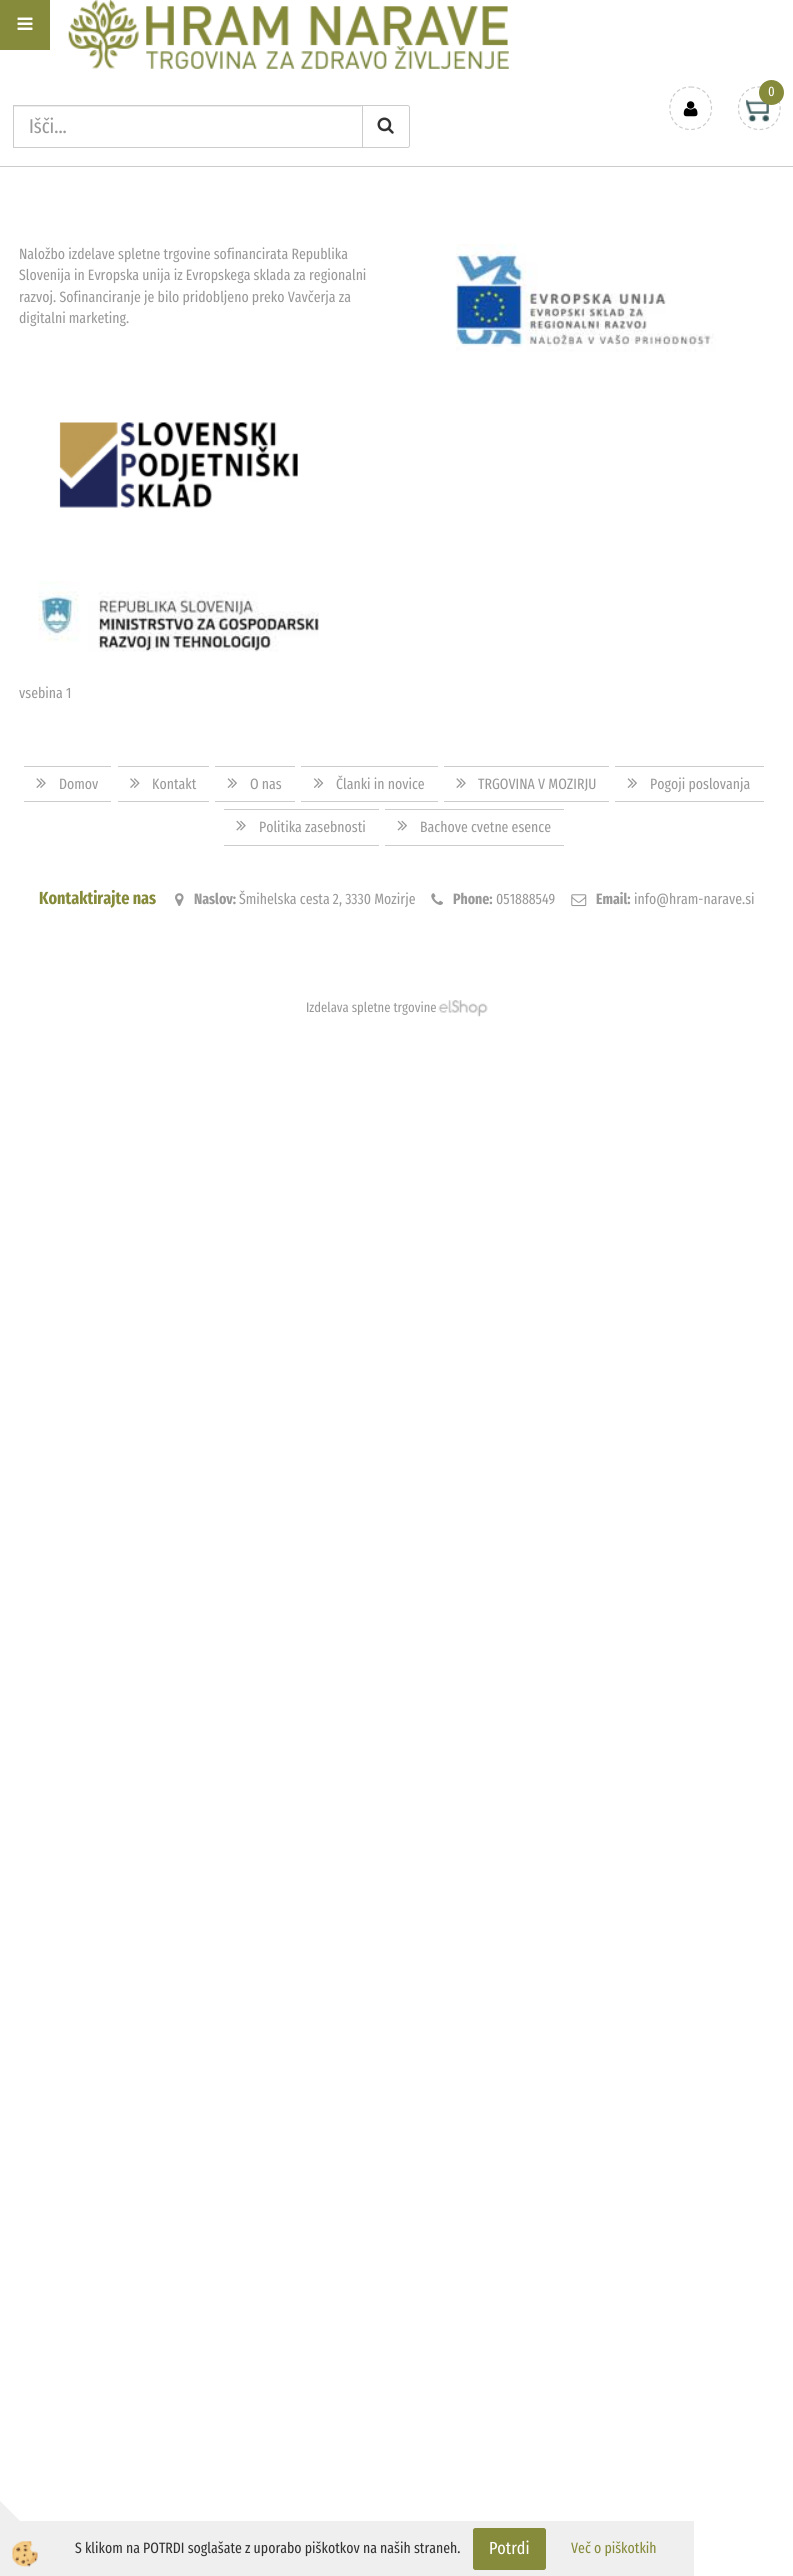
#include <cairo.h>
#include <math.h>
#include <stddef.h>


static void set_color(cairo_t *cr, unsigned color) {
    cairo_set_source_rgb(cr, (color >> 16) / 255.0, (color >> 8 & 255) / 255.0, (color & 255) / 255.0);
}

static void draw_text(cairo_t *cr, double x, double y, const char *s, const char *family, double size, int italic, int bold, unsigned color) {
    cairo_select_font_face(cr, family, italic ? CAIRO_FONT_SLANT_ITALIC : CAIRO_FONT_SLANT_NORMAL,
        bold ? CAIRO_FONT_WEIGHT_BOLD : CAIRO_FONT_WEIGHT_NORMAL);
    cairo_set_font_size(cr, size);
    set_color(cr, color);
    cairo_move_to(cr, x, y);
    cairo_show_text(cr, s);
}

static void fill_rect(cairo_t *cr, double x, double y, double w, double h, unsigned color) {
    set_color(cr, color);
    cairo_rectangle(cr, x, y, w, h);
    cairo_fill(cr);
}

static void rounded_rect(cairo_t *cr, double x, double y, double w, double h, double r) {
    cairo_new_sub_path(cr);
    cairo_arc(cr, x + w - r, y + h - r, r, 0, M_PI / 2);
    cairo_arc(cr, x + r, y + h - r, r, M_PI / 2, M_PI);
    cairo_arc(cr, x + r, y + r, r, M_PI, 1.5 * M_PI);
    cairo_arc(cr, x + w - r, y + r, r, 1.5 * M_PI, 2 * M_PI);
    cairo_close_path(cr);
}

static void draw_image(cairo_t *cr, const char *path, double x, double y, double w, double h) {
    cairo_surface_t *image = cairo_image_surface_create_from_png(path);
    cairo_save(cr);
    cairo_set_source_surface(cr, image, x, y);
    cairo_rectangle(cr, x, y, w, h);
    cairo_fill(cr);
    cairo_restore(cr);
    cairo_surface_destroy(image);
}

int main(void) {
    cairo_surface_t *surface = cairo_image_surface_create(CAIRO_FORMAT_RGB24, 793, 2576);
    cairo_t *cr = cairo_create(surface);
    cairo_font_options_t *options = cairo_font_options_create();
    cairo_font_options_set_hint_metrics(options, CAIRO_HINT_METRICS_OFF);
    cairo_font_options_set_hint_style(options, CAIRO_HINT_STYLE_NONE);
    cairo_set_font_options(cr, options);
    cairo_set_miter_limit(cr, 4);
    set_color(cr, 0xFFFFFF);
    cairo_paint(cr);
    fill_rect(cr, 0, 0, 50, 50, 0x868A3B);
    draw_image(cr, "assets/img1.png", 17, 17, 16, 13);
    draw_image(cr, "assets/img2.png", 68, 0, 441, 69);
    cairo_new_path(cr);
    cairo_move_to(cr, 690.5, 87);
    cairo_curve_to(cr, 718.5, 87, 718.5, 129.5, 690.5, 129.5);
    cairo_curve_to(cr, 663, 129.5, 663, 87, 690.5, 87);
    cairo_close_path(cr);
    set_color(cr, 0xCCCCCC);
    cairo_set_line_width(cr, 1.2);
    cairo_set_dash(cr, (double[]){3.75, 2.5}, 2, 0);
    cairo_stroke(cr);
    draw_image(cr, "assets/img3.png", 683, 101, 15, 16);
    cairo_new_path(cr);
    cairo_move_to(cr, 759.5, 87);
    cairo_curve_to(cr, 787, 87, 787, 129.5, 759.5, 129.5);
    cairo_curve_to(cr, 731.5, 129.5, 731.5, 87, 759.5, 87);
    cairo_close_path(cr);
    cairo_stroke(cr);
    draw_image(cr, "assets/img4.png", 746, 99, 24, 23);
    set_color(cr, 0x868A3B);
    cairo_arc(cr, 771.5, 92.5, 12.5, 0, 2 * M_PI);
    cairo_fill(cr);
    draw_text(cr, 768, 96, "0", "Fira Sans Extra Condensed", 13.75, 0, 0, 0xFFFFFF);
    cairo_new_path(cr);
    cairo_move_to(cr, 361.5, 105.5);
    cairo_line_to(cr, 407.5, 105.5);
    cairo_curve_to(cr, 408.5, 105.5, 409.5, 106.5, 409.5, 107.5);
    cairo_line_to(cr, 409.5, 145.5);
    cairo_curve_to(cr, 409.5, 146.5, 408.5, 147.5, 407.5, 147.5);
    cairo_line_to(cr, 361.5, 147.5);
    cairo_close_path(cr);
    set_color(cr, 0xCCCCCC);
    cairo_set_line_width(cr, 1);
    cairo_set_dash(cr, NULL, 0, 0);
    cairo_stroke(cr);
    fill_rect(cr, 361, 106, 1, 41, 0xFFFFFF);
    fill_rect(cr, 14, 106, 347, 1, 0xECECEC);
    cairo_rectangle(cr, 13.5, 105.5, 349, 42);
    set_color(cr, 0xCCCCCC);
    cairo_stroke(cr);
    draw_text(cr, 29, 133, "Išči...", "Fira Sans Extra Condensed", 20, 0, 0, 0x999999);
    draw_image(cr, "assets/img5.png", 377, 117, 17, 17);
    fill_rect(cr, 0, 166, 793, 1, 0xCCCCCC);
    draw_text(cr, 19, 259, "Naložbo izdelave spletne trgovine sofinancirata Republika", "Fira Sans Extra Condensed", 15, 0, 0, 0x999999);
    draw_text(cr, 19, 280, "Slovenija in Evropska unija iz Evropskega sklada za regionalni", "Fira Sans Extra Condensed", 15, 0, 0, 0x999999);
    draw_text(cr, 19, 302, "razvoj. Sofinanciranje je bilo pridobljeno preko Vavčerja za", "Fira Sans Extra Condensed", 15, 0, 0, 0x999999);
    draw_text(cr, 19, 323, "digitalni marketing.", "Fira Sans Extra Condensed", 15, 0, 0, 0x999999);
    draw_image(cr, "assets/img6.png", 455, 244, 261, 108);
    draw_image(cr, "assets/img7.png", 59, 422, 239, 86);
    draw_image(cr, "assets/img8.png", 38, 581, 281, 71);
    draw_text(cr, 19, 698, "vsebina 1", "Fira Sans Extra Condensed", 15, 0, 0, 0x999999);
    fill_rect(cr, 24, 766, 87, 1, 0xCCCCCC);
    fill_rect(cr, 24, 801, 87, 1, 0xCCCCCC);
    draw_image(cr, "assets/img9.png", 36, 778, 10, 10);
    draw_text(cr, 59, 789, "Domov", "Fira Sans Extra Condensed", 15, 0, 0, 0x999999);
    fill_rect(cr, 118, 766, 91, 1, 0xCCCCCC);
    fill_rect(cr, 118, 801, 91, 1, 0xCCCCCC);
    draw_image(cr, "assets/img10.png", 130, 778, 10, 10);
    draw_text(cr, 152, 789, "Kontakt", "Fira Sans Extra Condensed", 15, 0, 0, 0x999999);
    fill_rect(cr, 215, 766, 80, 1, 0xCCCCCC);
    fill_rect(cr, 215, 801, 80, 1, 0xCCCCCC);
    draw_image(cr, "assets/img11.png", 227, 778, 10, 10);
    draw_text(cr, 250, 789, "O nas", "Fira Sans Extra Condensed", 15, 0, 0, 0x999999);
    fill_rect(cr, 301, 766, 137, 1, 0xCCCCCC);
    fill_rect(cr, 301, 801, 137, 1, 0xCCCCCC);
    draw_image(cr, "assets/img12.png", 314, 778, 10, 10);
    draw_text(cr, 336, 789, "Članki in novice", "Fira Sans Extra Condensed", 15, 0, 0, 0x999999);
    fill_rect(cr, 444, 766, 165, 1, 0xCCCCCC);
    fill_rect(cr, 444, 801, 165, 1, 0xCCCCCC);
    draw_image(cr, "assets/img9.png", 456, 778, 10, 10);
    draw_text(cr, 478, 789, "TRGOVINA V MOZIRJU", "Fira Sans Extra Condensed", 15, 0, 0, 0x999999);
    fill_rect(cr, 615, 766, 149, 1, 0xCCCCCC);
    fill_rect(cr, 615, 801, 149, 1, 0xCCCCCC);
    draw_image(cr, "assets/img11.png", 627, 778, 10, 10);
    draw_text(cr, 650, 789, "Pogoji poslovanja", "Fira Sans Extra Condensed", 15, 0, 0, 0x999999);
    fill_rect(cr, 224, 809, 155, 1, 0xCCCCCC);
    fill_rect(cr, 224, 845, 155, 1, 0xCCCCCC);
    draw_image(cr, "assets/img13.png", 236, 820, 10, 11);
    draw_text(cr, 259, 832, "Politika zasebnosti", "Fira Sans Extra Condensed", 15, 0, 0, 0x999999);
    fill_rect(cr, 385, 809, 179, 1, 0xCCCCCC);
    fill_rect(cr, 385, 845, 179, 1, 0xCCCCCC);
    draw_image(cr, "assets/img14.png", 397, 820, 10, 11);
    draw_text(cr, 420, 832, "Bachove cvetne esence", "Fira Sans Extra Condensed", 15, 0, 0, 0x999999);
    draw_text(cr, 39, 904, "Kontaktirajte nas", "Fira Sans Extra Condensed", 17.5, 0, 1, 0x868A3B);
    draw_image(cr, "assets/img15.png", 175, 893, 9, 13);
    draw_text(cr, 194, 904, "Naslov:", "Fira Sans Extra Condensed", 15, 0, 1, 0x999999);
    draw_text(cr, 239, 904, "Šmihelska cesta 2, 3330 Mozirje", "Fira Sans Extra Condensed", 15, 0, 0, 0x999999);
    draw_image(cr, "assets/img16.png", 431, 893, 12, 12);
    draw_text(cr, 453, 904, "Phone:", "Fira Sans Extra Condensed", 15, 0, 1, 0x999999);
    draw_text(cr, 496, 904, "051888549", "Fira Sans Extra Condensed", 15, 0, 0, 0x999999);
    draw_image(cr, "assets/img17.png", 571, 894, 16, 13);
    draw_text(cr, 596, 904, "Email:", "Fira Sans Extra Condensed", 15, 0, 1, 0x999999);
    draw_text(cr, 634, 904, "info@hram-narave.si", "Fira Sans Extra Condensed", 15, 0, 0, 0x999999);
    draw_text(cr, 306, 1012, "Izdelava spletne trgovine", "Fira Sans Extra Condensed", 13.75, 0, 0, 0x999999);
    draw_image(cr, "assets/img18.png", 438, 1000, 50, 17);
    fill_rect(cr, 20, 2521, 674, 55, 0xEFEFEF);
    cairo_new_path(cr);
    cairo_move_to(cr, 75, 2576);
    cairo_line_to(cr, 0, 2576);
    cairo_line_to(cr, 0, 2501);
    cairo_close_path(cr);
    cairo_fill(cr);
    draw_image(cr, "assets/img19.png", 12, 2541, 26, 26);
    draw_text(cr, 75, 2553, "S klikom na POTRDI soglašate z uporabo piškotkov na naših straneh.", "Fira Sans Extra Condensed", 15, 0, 0, 0x333333);
    set_color(cr, 0x868A3B);
    rounded_rect(cr, 473.5, 2528.5, 72, 41, 2);
    cairo_fill_preserve(cr);
    cairo_stroke(cr);
    draw_text(cr, 489, 2554, "Potrdi", "Fira Sans Extra Condensed", 17.5, 0, 0, 0xFFFFFF);
    draw_text(cr, 571, 2553, "Več o piškotkih", "Fira Sans Extra Condensed", 15, 0, 0, 0x868A3B);
    cairo_surface_write_to_png(surface, "output.png");
    cairo_font_options_destroy(options);
    cairo_destroy(cr);
    cairo_surface_destroy(surface);
    return 0;
}
